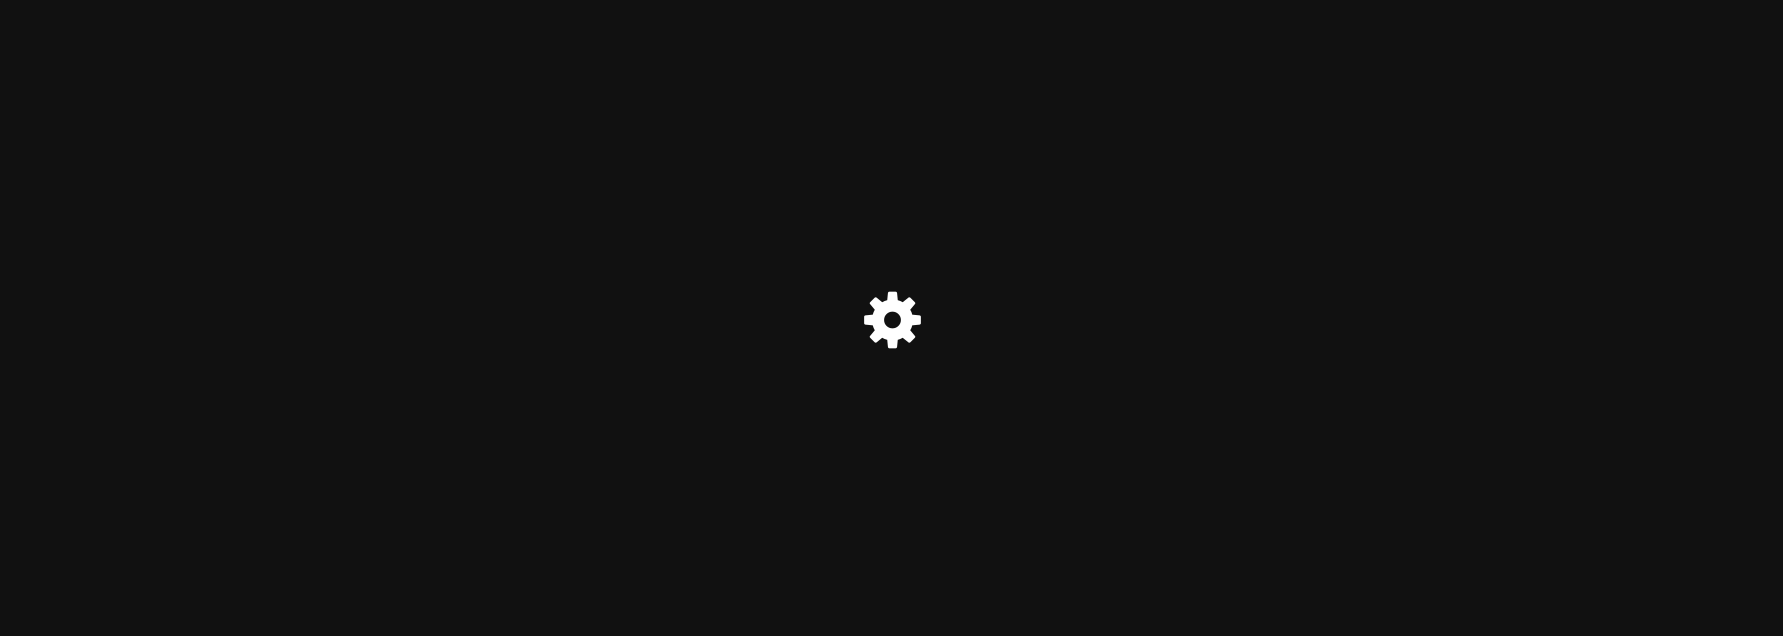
#include <cairo.h>
#include <math.h>
#include <stddef.h>


static void set_color(cairo_t *cr, unsigned color) {
    cairo_set_source_rgb(cr, (color >> 16) / 255.0, (color >> 8 & 255) / 255.0, (color & 255) / 255.0);
}

static void draw_image(cairo_t *cr, const char *path, double x, double y, double w, double h) {
    cairo_surface_t *image = cairo_image_surface_create_from_png(path);
    cairo_save(cr);
    cairo_set_source_surface(cr, image, x, y);
    cairo_rectangle(cr, x, y, w, h);
    cairo_fill(cr);
    cairo_restore(cr);
    cairo_surface_destroy(image);
}

int main(void) {
    cairo_surface_t *surface = cairo_image_surface_create(CAIRO_FORMAT_RGB24, 1783, 636);
    cairo_t *cr = cairo_create(surface);
    cairo_font_options_t *options = cairo_font_options_create();
    cairo_font_options_set_hint_metrics(options, CAIRO_HINT_METRICS_OFF);
    cairo_font_options_set_hint_style(options, CAIRO_HINT_STYLE_NONE);
    cairo_set_font_options(cr, options);
    cairo_set_miter_limit(cr, 4);
    set_color(cr, 0x111111);
    cairo_paint(cr);
    draw_image(cr, "assets/img1.png", 864, 291, 57, 58);
    cairo_surface_write_to_png(surface, "output.png");
    cairo_font_options_destroy(options);
    cairo_destroy(cr);
    cairo_surface_destroy(surface);
    return 0;
}
